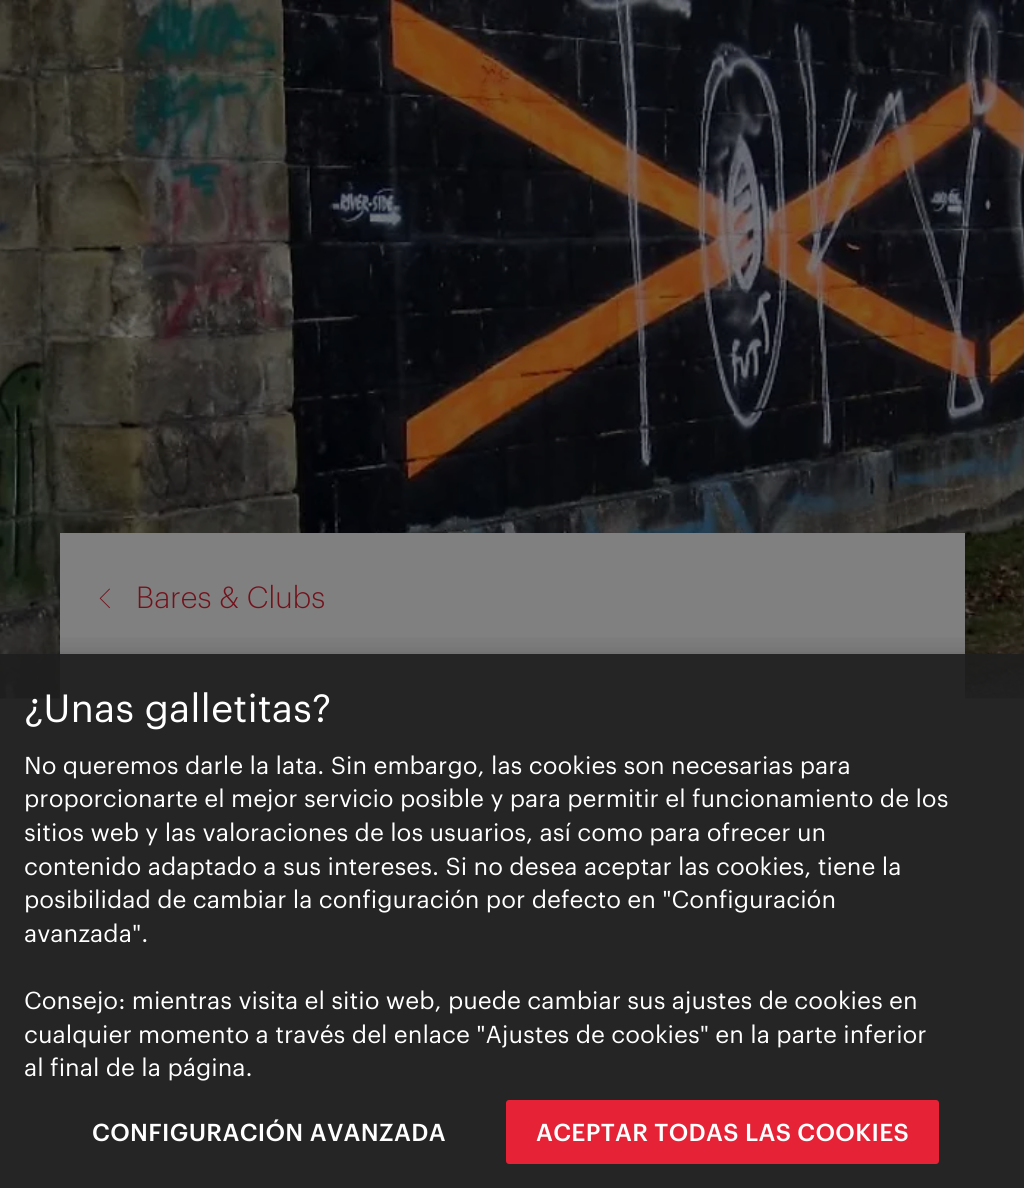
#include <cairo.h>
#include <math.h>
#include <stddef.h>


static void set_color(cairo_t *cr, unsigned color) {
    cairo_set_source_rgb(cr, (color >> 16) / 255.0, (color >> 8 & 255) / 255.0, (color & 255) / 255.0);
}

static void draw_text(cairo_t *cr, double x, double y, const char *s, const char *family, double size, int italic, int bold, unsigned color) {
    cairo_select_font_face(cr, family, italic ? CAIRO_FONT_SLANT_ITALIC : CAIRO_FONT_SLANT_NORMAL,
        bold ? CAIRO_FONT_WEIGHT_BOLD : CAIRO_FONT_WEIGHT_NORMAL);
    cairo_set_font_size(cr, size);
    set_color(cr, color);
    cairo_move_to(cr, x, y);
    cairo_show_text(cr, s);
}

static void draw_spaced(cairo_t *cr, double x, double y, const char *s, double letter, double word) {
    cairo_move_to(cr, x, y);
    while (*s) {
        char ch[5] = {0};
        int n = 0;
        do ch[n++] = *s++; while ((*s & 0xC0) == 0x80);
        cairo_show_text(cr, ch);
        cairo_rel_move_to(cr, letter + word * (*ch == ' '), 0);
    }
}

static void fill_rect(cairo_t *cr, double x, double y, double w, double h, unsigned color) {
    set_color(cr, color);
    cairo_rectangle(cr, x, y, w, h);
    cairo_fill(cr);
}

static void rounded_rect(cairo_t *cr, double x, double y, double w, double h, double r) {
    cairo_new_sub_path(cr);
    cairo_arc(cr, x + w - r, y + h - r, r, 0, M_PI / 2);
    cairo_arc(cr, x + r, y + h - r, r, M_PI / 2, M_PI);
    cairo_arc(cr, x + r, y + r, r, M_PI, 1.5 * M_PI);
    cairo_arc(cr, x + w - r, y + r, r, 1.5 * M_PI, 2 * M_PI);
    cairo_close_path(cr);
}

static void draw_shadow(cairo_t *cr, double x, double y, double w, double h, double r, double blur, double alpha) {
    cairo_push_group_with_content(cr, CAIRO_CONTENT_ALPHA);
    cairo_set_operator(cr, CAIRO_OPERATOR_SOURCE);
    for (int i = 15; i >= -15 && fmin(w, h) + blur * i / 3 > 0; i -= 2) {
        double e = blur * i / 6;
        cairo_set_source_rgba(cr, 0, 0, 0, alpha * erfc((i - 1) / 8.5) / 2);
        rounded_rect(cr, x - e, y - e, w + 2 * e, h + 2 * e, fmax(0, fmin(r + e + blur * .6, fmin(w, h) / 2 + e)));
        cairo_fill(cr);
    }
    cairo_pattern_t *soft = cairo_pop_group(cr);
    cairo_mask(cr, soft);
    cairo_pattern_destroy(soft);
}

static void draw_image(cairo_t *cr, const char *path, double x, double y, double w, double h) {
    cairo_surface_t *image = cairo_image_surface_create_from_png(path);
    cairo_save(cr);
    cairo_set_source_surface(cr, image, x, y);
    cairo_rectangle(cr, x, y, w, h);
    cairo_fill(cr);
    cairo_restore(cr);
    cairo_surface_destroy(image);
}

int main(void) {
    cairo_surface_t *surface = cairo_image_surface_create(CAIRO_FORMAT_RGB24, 1024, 1188);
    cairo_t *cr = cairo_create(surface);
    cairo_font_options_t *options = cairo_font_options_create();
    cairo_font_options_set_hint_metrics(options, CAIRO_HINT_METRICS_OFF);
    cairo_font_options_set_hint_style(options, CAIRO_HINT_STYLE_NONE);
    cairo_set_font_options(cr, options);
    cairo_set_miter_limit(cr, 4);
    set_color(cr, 0x808080);
    cairo_paint(cr);
    draw_image(cr, "assets/img1.png", 0, 0, 1024, 699);
    fill_rect(cr, 60, 533, 905, 166, 0x808080);
    draw_image(cr, "assets/img2.png", 99, 588, 11, 21);
    draw_text(cr, 136, 608, "Bares & Clubs", "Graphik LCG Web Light", 30, 0, 0, 0x73111B);
    cairo_save(cr);
    cairo_rectangle(cr, 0, 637, 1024, 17);
    cairo_clip(cr);
    set_color(cr, 0x000000);
    draw_shadow(cr, 0, 654, 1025, 534, 0, 13.5, 0.2);
    cairo_restore(cr);
    cairo_set_source_rgba(cr, 0.118, 0.118, 0.118, 0.92);
    cairo_rectangle(cr, 0, 654, 1024, 534);
    cairo_fill(cr);
    draw_text(cr, 24, 722, "¿Unas galletitas?", "Graphik LCG Web", 38.5, 0, 0, 0xFFFFFF);
    draw_text(cr, 24, 774, "No queremos darle la lata. Sin embargo, las cookies son necesarias para", "Graphik LCG Web", 24, 0, 0, 0xFFFFFF);
    draw_text(cr, 24, 807, "proporcionarte el mejor servicio posible y para permitir el funcionamiento de los", "Graphik LCG Web", 24, 0, 0, 0xFFFFFF);
    draw_text(cr, 24, 841, "sitios web y las valoraciones de los usuarios, así como para ofrecer un", "Graphik LCG Web", 24, 0, 0, 0xFFFFFF);
    draw_text(cr, 24, 875, "contenido adaptado a sus intereses. Si no desea aceptar las cookies, tiene la", "Graphik LCG Web", 24, 0, 0, 0xFFFFFF);
    draw_text(cr, 24, 908, "posibilidad de cambiar la configuración por defecto en \"Configuración", "Graphik LCG Web", 24, 0, 0, 0xFFFFFF);
    draw_text(cr, 24, 942, "avanzada\".", "Graphik LCG Web", 24, 0, 0, 0xFFFFFF);
    draw_text(cr, 24, 1009, "Consejo: mientras visita el sitio web, puede cambiar sus ajustes de cookies en", "Graphik LCG Web", 24, 0, 0, 0xFFFFFF);
    draw_text(cr, 24, 1043, "cualquier momento a través del enlace \"Ajustes de cookies\" en la parte inferior", "Graphik LCG Web", 24, 0, 0, 0xFFFFFF);
    draw_text(cr, 24, 1076, "al final de la página.", "Graphik LCG Web", 24, 0, 0, 0xFFFFFF);
    cairo_select_font_face(cr, "Graphik LCG Web Medium", CAIRO_FONT_SLANT_NORMAL, CAIRO_FONT_WEIGHT_NORMAL);
    draw_spaced(cr, 92, 1141, "CONFIGURACIÓN AVANZADA", 0.25, 0);
    set_color(cr, 0xE52236);
    rounded_rect(cr, 506, 1100, 433, 64, 3);
    cairo_fill(cr);
    set_color(cr, 0xFFFFFF);
    draw_spaced(cr, 536, 1141, "ACEPTAR TODAS LAS COOKIES", 0.25, 0);
    cairo_surface_write_to_png(surface, "output.png");
    cairo_font_options_destroy(options);
    cairo_destroy(cr);
    cairo_surface_destroy(surface);
    return 0;
}
